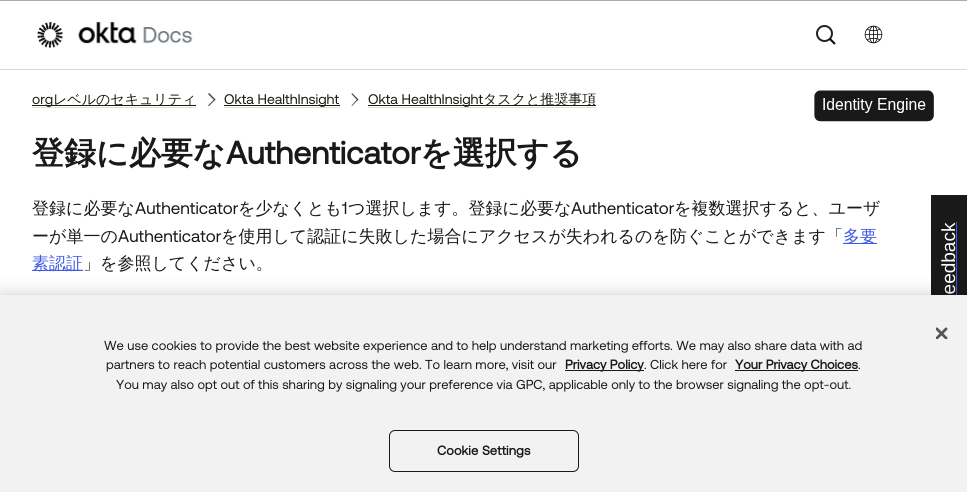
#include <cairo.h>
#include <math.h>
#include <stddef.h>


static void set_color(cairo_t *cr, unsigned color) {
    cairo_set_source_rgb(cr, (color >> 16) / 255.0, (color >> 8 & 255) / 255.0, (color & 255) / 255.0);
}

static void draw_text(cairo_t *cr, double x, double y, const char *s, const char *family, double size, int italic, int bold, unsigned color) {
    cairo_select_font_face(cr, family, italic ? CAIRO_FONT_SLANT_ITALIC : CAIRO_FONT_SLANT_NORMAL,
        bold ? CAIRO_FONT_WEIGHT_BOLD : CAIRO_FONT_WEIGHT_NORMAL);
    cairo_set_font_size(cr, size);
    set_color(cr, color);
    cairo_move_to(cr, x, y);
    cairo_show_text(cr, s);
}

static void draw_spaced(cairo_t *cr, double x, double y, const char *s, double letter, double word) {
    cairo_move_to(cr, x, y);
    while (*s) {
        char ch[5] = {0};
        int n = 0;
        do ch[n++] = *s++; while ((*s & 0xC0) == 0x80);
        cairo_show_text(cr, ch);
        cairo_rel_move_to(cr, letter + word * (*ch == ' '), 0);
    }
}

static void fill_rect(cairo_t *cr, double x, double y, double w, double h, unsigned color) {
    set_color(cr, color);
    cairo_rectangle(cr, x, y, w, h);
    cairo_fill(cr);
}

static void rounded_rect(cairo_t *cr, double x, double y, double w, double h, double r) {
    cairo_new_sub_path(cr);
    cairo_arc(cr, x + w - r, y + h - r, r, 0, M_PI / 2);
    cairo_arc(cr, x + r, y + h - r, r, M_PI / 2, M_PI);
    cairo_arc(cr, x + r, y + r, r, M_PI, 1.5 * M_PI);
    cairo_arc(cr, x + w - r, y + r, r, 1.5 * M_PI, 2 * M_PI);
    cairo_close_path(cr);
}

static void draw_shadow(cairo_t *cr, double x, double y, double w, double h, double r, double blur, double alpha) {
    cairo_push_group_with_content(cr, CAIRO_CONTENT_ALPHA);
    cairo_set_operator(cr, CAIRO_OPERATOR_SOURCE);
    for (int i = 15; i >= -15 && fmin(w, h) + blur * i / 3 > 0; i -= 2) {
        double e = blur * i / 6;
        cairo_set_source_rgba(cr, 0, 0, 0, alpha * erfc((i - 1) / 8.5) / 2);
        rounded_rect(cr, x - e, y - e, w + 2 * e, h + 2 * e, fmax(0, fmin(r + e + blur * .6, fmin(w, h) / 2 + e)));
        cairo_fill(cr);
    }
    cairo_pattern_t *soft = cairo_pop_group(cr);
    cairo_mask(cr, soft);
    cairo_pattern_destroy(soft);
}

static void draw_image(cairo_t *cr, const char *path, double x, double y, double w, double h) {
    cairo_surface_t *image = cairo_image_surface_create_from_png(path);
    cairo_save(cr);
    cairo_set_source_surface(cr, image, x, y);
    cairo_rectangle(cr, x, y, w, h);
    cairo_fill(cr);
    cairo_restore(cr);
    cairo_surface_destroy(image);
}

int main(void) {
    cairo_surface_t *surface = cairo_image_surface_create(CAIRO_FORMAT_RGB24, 967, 492);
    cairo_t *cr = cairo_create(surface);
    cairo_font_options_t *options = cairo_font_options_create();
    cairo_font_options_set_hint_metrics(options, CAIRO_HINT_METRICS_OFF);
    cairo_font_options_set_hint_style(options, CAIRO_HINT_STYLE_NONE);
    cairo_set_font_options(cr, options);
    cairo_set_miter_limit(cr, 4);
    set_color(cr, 0xFFFFFF);
    cairo_paint(cr);
    fill_rect(cr, 0, 69, 967, 1, 0xD7D7DC);
    draw_image(cr, "assets/img1.png", 37, 22, 156, 26);
    cairo_arc(cr, 824.5, 33.5, 7.5, 0, 2 * M_PI);
    set_color(cr, 0x212126);
    cairo_stroke(cr);
    cairo_new_path(cr);
    cairo_move_to(cr, 835, 44);
    cairo_line_to(cr, 830, 39);
    set_color(cr, 0x000000);
    cairo_stroke(cr);
    fill_rect(cr, 0, 0, 967, 1, 0xAFABA1);
    draw_image(cr, "assets/img2.png", 864, 25, 19, 19);
    fill_rect(cr, 32, 107, 164, 1, 0xE8DCC7);
    fill_rect(cr, 32, 105, 164, 1, 0x191919);
    draw_text(cr, 32, 104, "org", "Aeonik", 14, 0, 0, 0x191919);
    draw_text(cr, 53, 104, "レベルのセキュリティ", "WenQuanYi Zen Hei Medium", 14, 0, 0, 0x191919);
    set_color(cr, 0x41414B);
    cairo_new_path(cr);
    cairo_move_to(cr, 208, 94);
    cairo_line_to(cr, 209, 93);
    cairo_line_to(cr, 215.5, 99.5);
    cairo_line_to(cr, 214.5, 100.5);
    cairo_close_path(cr);
    cairo_fill(cr);
    cairo_new_path(cr);
    cairo_move_to(cr, 208, 105.5);
    cairo_line_to(cr, 214.5, 99);
    cairo_line_to(cr, 215.5, 99.5);
    cairo_line_to(cr, 209, 106);
    cairo_close_path(cr);
    cairo_fill(cr);
    fill_rect(cr, 224, 107, 116, 1, 0xE8DCC7);
    fill_rect(cr, 224, 105, 116, 1, 0x191919);
    draw_text(cr, 224, 104, "Okta HealthInsight", "Aeonik", 14, 0, 0, 0x191919);
    set_color(cr, 0x41414B);
    cairo_new_path(cr);
    cairo_move_to(cr, 351.5, 94);
    cairo_line_to(cr, 352, 93);
    cairo_line_to(cr, 358.5, 99.5);
    cairo_line_to(cr, 357.5, 100.5);
    cairo_close_path(cr);
    cairo_fill(cr);
    cairo_new_path(cr);
    cairo_move_to(cr, 351.5, 105.5);
    cairo_line_to(cr, 357.5, 99);
    cairo_line_to(cr, 358.5, 99.5);
    cairo_line_to(cr, 352, 106);
    cairo_close_path(cr);
    cairo_fill(cr);
    fill_rect(cr, 368, 107, 228, 1, 0xE8DCC7);
    fill_rect(cr, 368, 105, 228, 1, 0x191919);
    draw_text(cr, 368, 104, "Okta HealthInsight", "Aeonik", 14, 0, 0, 0x191919);
    draw_text(cr, 483, 104, "タスクと推奨事項", "WenQuanYi Zen Hei Medium", 14, 0, 0, 0x191919);
    draw_image(cr, "assets/img3.png", 814, 90, 120, 32);
    draw_text(cr, 32, 164, "登録に必要な", "WenQuanYi Zen Hei", 32, 0, 1, 0x191919);
    draw_text(cr, 226, 164, "Authenticator", "Aeonik", 32, 0, 1, 0x191919);
    draw_text(cr, 420, 164, "を選択する", "WenQuanYi Zen Hei", 32, 0, 1, 0x191919);
    draw_text(cr, 32, 214, "登録に必要な", "WenQuanYi Zen Hei Medium", 17, 0, 0, 0x191919);
    draw_text(cr, 135, 214, "Authenticator", "Aeonik", 17, 0, 0, 0x191919);
    draw_text(cr, 238, 214, "を少なくとも", "WenQuanYi Zen Hei Medium", 17, 0, 0, 0x191919);
    draw_text(cr, 342, 214, "1", "Aeonik", 17, 0, 0, 0x191919);
    draw_text(cr, 348, 214, "つ選択します。登録に必要な", "WenQuanYi Zen Hei Medium", 17, 0, 0, 0x191919);
    draw_text(cr, 571, 214, "Authenticator", "Aeonik", 17, 0, 0, 0x191919);
    draw_text(cr, 674, 214, "を複数選択すると、ユーザ", "WenQuanYi Zen Hei Medium", 17, 0, 0, 0x191919);
    draw_text(cr, 32, 242, "ーが単一の", "WenQuanYi Zen Hei Medium", 17, 0, 0, 0x191919);
    draw_text(cr, 118, 242, "Authenticator", "Aeonik", 17, 0, 0, 0x191919);
    draw_text(cr, 221, 242, "を使用して認証に失敗した場合にアクセスが失われるのを防ぐことができます「", "WenQuanYi Zen Hei Medium", 17, 0, 0, 0x191919);
    fill_rect(cr, 843, 243, 34, 1, 0x3F59E4);
    draw_text(cr, 843, 242, "多要", "WenQuanYi Zen Hei Medium", 17, 0, 0, 0x3F59E4);
    fill_rect(cr, 32, 270, 51, 1, 0x3F59E4);
    draw_text(cr, 32, 269, "素認証", "WenQuanYi Zen Hei Medium", 17, 0, 0, 0x3F59E4);
    draw_text(cr, 83, 269, "」を参照してください。", "WenQuanYi Zen Hei Medium", 17, 0, 0, 0x191919);
    fill_rect(cr, 931, 195, 36, 100, 0x191919);
    cairo_save(cr);
    cairo_translate(cr, 955, 306);
    cairo_rotate(cr, -90 * M_PI / 180);
    draw_text(cr, 0, 0, "Feedback", "Liberation Sans", 19, 0, 0, 0xFFFFFF);
    cairo_restore(cr);
    fill_rect(cr, 956, 222, 1, 73, 0x3F59E4);
    set_color(cr, 0x000000);
    draw_shadow(cr, 0, 295, 967, 197, 0, 9, 0.2);
    fill_rect(cr, 0, 295, 967, 197, 0xF2F2F2);
    draw_image(cr, "assets/img4.png", 936, 327, 12, 12);
    draw_text(cr, 104, 350, "We use cookies to provide the best website experience and to help understand marketing efforts. We may also share data with ad", "Aeonik", 13, 0, 0, 0x191919);
    draw_text(cr, 106, 369, "partners to reach potential customers across the web. To learn more, visit our", "Aeonik", 13, 0, 0, 0x191919);
    fill_rect(cr, 565, 370, 79, 1, 0x191919);
    draw_text(cr, 565, 369, "Privacy Policy", "Aeonik", 13, 0, 1, 0x191919);
    draw_text(cr, 644, 369, ". Click here for", "Aeonik", 13, 0, 0, 0x191919);
    fill_rect(cr, 735, 370, 123, 1, 0x191919);
    draw_text(cr, 735, 369, "Your Privacy Choices", "Aeonik", 13, 0, 1, 0x191919);
    draw_text(cr, 858, 369, ".", "Aeonik", 13, 0, 0, 0x191919);
    draw_text(cr, 116, 389, "You may also opt out of this sharing by signaling your preference via GPC, applicable only to the browser signaling the opt-out.", "Aeonik", 13, 0, 0, 0x191919);
    rounded_rect(cr, 389.5, 430.5, 189, 41, 5.5);
    cairo_set_line_width(cr, 1);
    cairo_stroke(cr);
    cairo_select_font_face(cr, "Aeonik", CAIRO_FONT_SLANT_NORMAL, CAIRO_FONT_WEIGHT_BOLD);
    draw_spaced(cr, 437, 455, "Cookie Settings", 0.1, 0);
    cairo_surface_write_to_png(surface, "output.png");
    cairo_font_options_destroy(options);
    cairo_destroy(cr);
    cairo_surface_destroy(surface);
    return 0;
}
